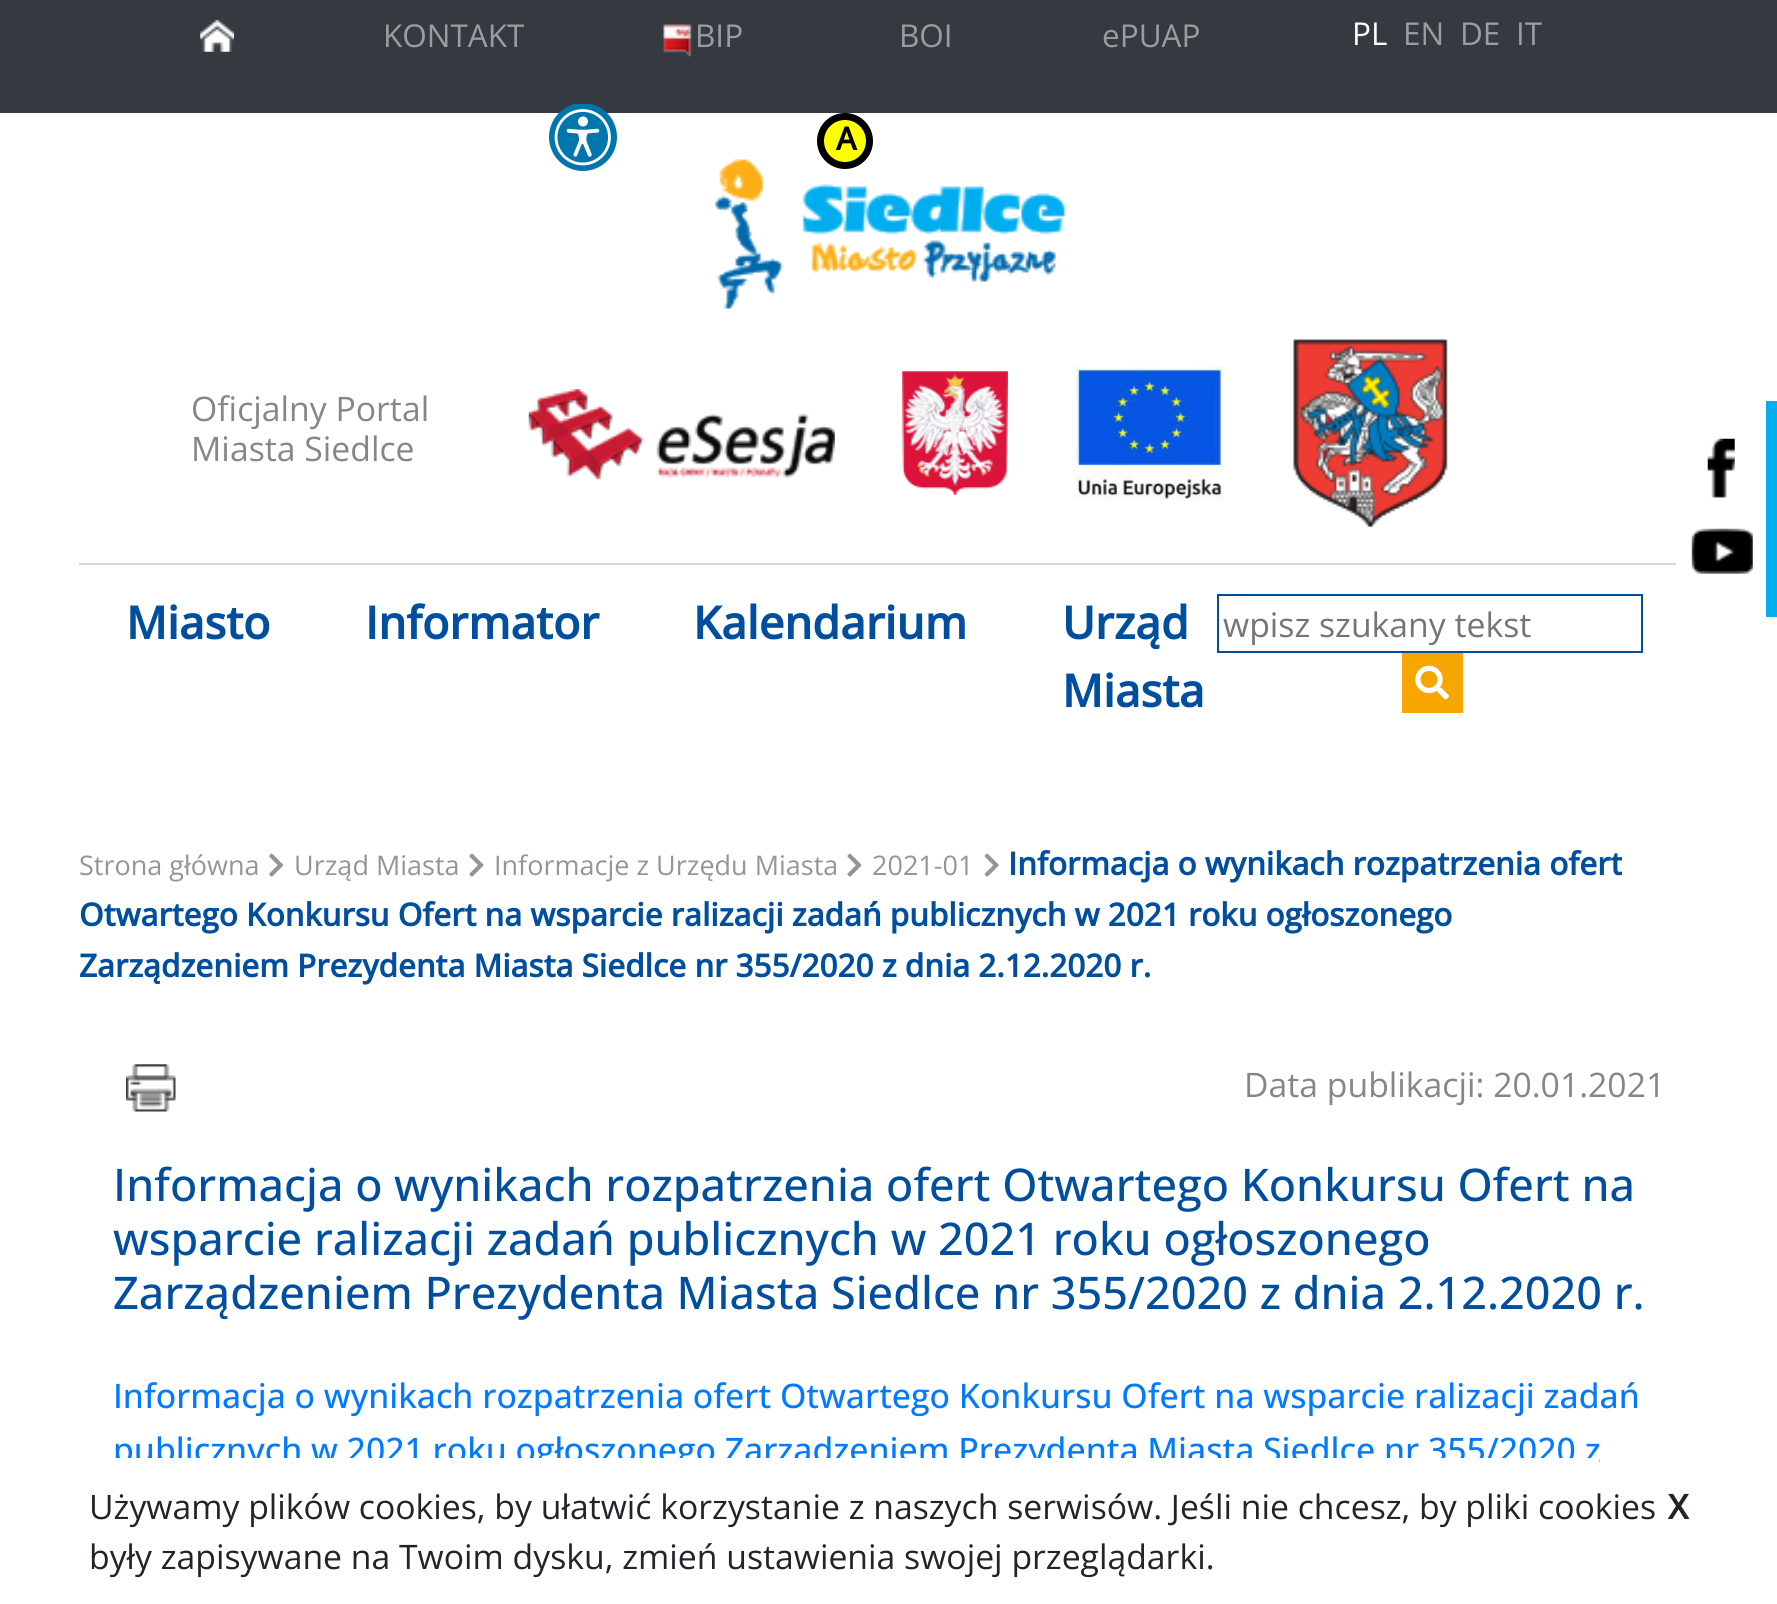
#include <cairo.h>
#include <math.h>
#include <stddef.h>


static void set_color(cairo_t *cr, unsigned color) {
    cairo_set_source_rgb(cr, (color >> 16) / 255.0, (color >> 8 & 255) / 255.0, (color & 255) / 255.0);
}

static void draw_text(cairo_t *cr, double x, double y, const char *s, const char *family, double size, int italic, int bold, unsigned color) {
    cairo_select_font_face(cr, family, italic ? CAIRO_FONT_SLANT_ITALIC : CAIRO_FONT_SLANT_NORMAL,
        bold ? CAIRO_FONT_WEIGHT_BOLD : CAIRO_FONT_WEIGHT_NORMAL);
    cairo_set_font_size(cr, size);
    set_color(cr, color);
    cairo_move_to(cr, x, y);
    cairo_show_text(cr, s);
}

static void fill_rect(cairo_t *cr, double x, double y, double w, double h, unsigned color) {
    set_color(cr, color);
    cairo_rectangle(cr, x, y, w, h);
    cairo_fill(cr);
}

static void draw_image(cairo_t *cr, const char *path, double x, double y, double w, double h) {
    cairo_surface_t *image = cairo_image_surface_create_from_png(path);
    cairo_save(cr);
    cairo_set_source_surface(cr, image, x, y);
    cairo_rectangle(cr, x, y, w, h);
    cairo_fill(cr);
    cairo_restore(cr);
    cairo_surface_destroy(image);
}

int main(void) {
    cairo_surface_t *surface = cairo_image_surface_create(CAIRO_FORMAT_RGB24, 1777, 1604);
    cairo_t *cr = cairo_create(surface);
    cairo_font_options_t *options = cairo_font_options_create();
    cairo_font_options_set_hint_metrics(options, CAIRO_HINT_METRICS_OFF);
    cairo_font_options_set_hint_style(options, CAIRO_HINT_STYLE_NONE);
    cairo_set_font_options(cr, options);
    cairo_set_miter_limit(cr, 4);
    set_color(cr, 0xFFFFFF);
    cairo_paint(cr);
    fill_rect(cr, 0, 0, 1777, 113, 0x343A40);
    draw_image(cr, "assets/img1.png", 200, 20, 34, 32);
    draw_text(cr, 383, 47, "KONTAKT", "Open Sans", 31.5, 0, 0, 0x9A9DA0);
    draw_image(cr, "assets/img2.png", 663, 24, 29, 33);
    draw_text(cr, 695, 47, "BIP", "Open Sans", 31.5, 0, 0, 0x9A9DA0);
    draw_text(cr, 899, 47, "BOI", "Open Sans", 31.5, 0, 0, 0x9A9DA0);
    draw_text(cr, 1102, 47, "ePUAP", "Open Sans", 31.5, 0, 0, 0x9A9DA0);
    draw_text(cr, 1352, 45, "PL", "Open Sans", 31.5, 0, 0, 0xFFFFFF);
    draw_text(cr, 1403, 45, "EN", "Open Sans", 31.5, 0, 0, 0x9A9DA0);
    draw_text(cr, 1460, 45, "DE", "Open Sans", 31.5, 0, 0, 0x9A9DA0);
    draw_text(cr, 1516, 45, "IT", "Open Sans", 31.5, 0, 0, 0x9A9DA0);
    draw_image(cr, "assets/img3.png", 549, 104, 68, 67);
    draw_image(cr, "assets/img4.png", 715, 159, 350, 150);
    set_color(cr, 0xFFFF00);
    cairo_arc(cr, 845, 141, 24.5, 0, 2 * M_PI);
    cairo_fill_preserve(cr);
    set_color(cr, 0x000000);
    cairo_set_line_width(cr, 7);
    cairo_stroke(cr);
    draw_text(cr, 836, 150, "A", "Open Sans", 31.5, 0, 1, 0x000000);
    draw_text(cr, 191, 421, "Oficjalny Portal", "Open Sans", 33.75, 0, 0, 0x868686);
    draw_text(cr, 191, 461, "Miasta Siedlce", "Open Sans", 33.75, 0, 0, 0x868686);
    draw_image(cr, "assets/img5.png", 528, 389, 307, 91);
    draw_image(cr, "assets/img6.png", 902, 371, 106, 124);
    draw_image(cr, "assets/img7.png", 1075, 366, 149, 135);
    draw_image(cr, "assets/img8.png", 1293, 339, 155, 189);
    fill_rect(cr, 1766, 401, 11, 216, 0x01AFF0);
    draw_image(cr, "assets/img9.png", 1707, 438, 28, 60);
    draw_image(cr, "assets/img10.png", 1691, 528, 62, 46);
    fill_rect(cr, 79, 563, 1597, 2, 0xD6D6D6);
    draw_text(cr, 126, 639, "Miasto", "Open Sans", 45, 0, 1, 0x004F9F);
    draw_text(cr, 365, 639, "Informator", "Open Sans", 45, 0, 1, 0x004F9F);
    draw_text(cr, 693, 639, "Kalendarium", "Open Sans", 45, 0, 1, 0x004F9F);
    draw_text(cr, 1062, 639, "Urząd", "Open Sans", 45, 0, 1, 0x004F9F);
    draw_text(cr, 1062, 707, "Miasta", "Open Sans", 45, 0, 1, 0x004F9F);
    cairo_rectangle(cr, 1218, 595, 424, 57);
    cairo_set_line_width(cr, 2);
    cairo_stroke(cr);
    draw_text(cr, 1223, 637, "wpisz szukany tekst", "Open Sans", 33.75, 0, 0, 0x757575);
    fill_rect(cr, 1402, 653, 61, 60, 0xF7A600);
    draw_image(cr, "assets/img11.png", 1415, 665, 34, 35);
    draw_text(cr, 79, 875, "Strona główna", "Open Sans", 27, 0, 0, 0x959595);
    draw_image(cr, "assets/img12.png", 269, 853, 15, 24);
    draw_text(cr, 294, 875, "Urząd Miasta", "Open Sans", 27, 0, 0, 0x959595);
    draw_image(cr, "assets/img13.png", 469, 853, 15, 24);
    draw_text(cr, 494, 875, "Informacje z Urzędu Miasta", "Open Sans", 27, 0, 0, 0x959595);
    draw_image(cr, "assets/img13.png", 847, 853, 15, 24);
    draw_text(cr, 872, 875, "2021-01", "Open Sans", 27, 0, 0, 0x959595);
    draw_image(cr, "assets/img14.png", 984, 853, 15, 24);
    draw_text(cr, 1008, 875, "Informacja o wynikach rozpatrzenia ofert", "Open Sans", 31.5, 0, 1, 0x004F9F);
    draw_text(cr, 79, 926, "Otwartego Konkursu Ofert na wsparcie ralizacji zadań publicznych w 2021 roku ogłoszonego", "Open Sans", 31.5, 0, 1, 0x004F9F);
    draw_text(cr, 79, 977, "Zarządzeniem Prezydenta Miasta Siedlce nr 355/2020 z dnia 2.12.2020 r.", "Open Sans", 31.5, 0, 1, 0x004F9F);
    draw_image(cr, "assets/img15.png", 126, 1064, 50, 48);
    draw_text(cr, 1244, 1097, "Data publikacji: 20.01.2021", "Open Sans", 33.75, 0, 0, 0x868686);
    draw_text(cr, 113, 1201, "Informacja o wynikach rozpatrzenia ofert Otwartego Konkursu Ofert na", "Open Sans Medium", 45, 0, 0, 0x004F9F);
    draw_text(cr, 113, 1255, "wsparcie ralizacji zadań publicznych w 2021 roku ogłoszonego", "Open Sans Medium", 45, 0, 0, 0x004F9F);
    draw_text(cr, 113, 1309, "Zarządzeniem Prezydenta Miasta Siedlce nr 355/2020 z dnia 2.12.2020 r.", "Open Sans Medium", 45, 0, 0, 0x004F9F);
    draw_text(cr, 113, 1408, "Informacja o wynikach rozpatrzenia ofert Otwartego Konkursu Ofert na wsparcie ralizacji zadań", "Open Sans Medium", 33.75, 0, 0, 0x007BFF);
    draw_text(cr, 113, 1462, "publicznych w 2021 roku ogłoszonego Zarządzeniem Prezydenta Miasta Siedlce nr 355/2020 z", "Open Sans Medium", 33.75, 0, 0, 0x007BFF);
    fill_rect(cr, 115, 1458, 1484, 13, 0xFFFFFF);
    draw_text(cr, 89, 1519, "Używamy plików cookies, by ułatwić korzystanie z naszych serwisów. Jeśli nie chcesz, by pliki cookies", "Open Sans", 33.75, 0, 0, 0x212529);
    draw_text(cr, 1668, 1519, "X", "Open Sans", 33.75, 0, 1, 0x212529);
    draw_text(cr, 89, 1569, "były zapisywane na Twoim dysku, zmień ustawienia swojej przeglądarki.", "Open Sans", 33.75, 0, 0, 0x212529);
    cairo_surface_write_to_png(surface, "output.png");
    cairo_font_options_destroy(options);
    cairo_destroy(cr);
    cairo_surface_destroy(surface);
    return 0;
}
